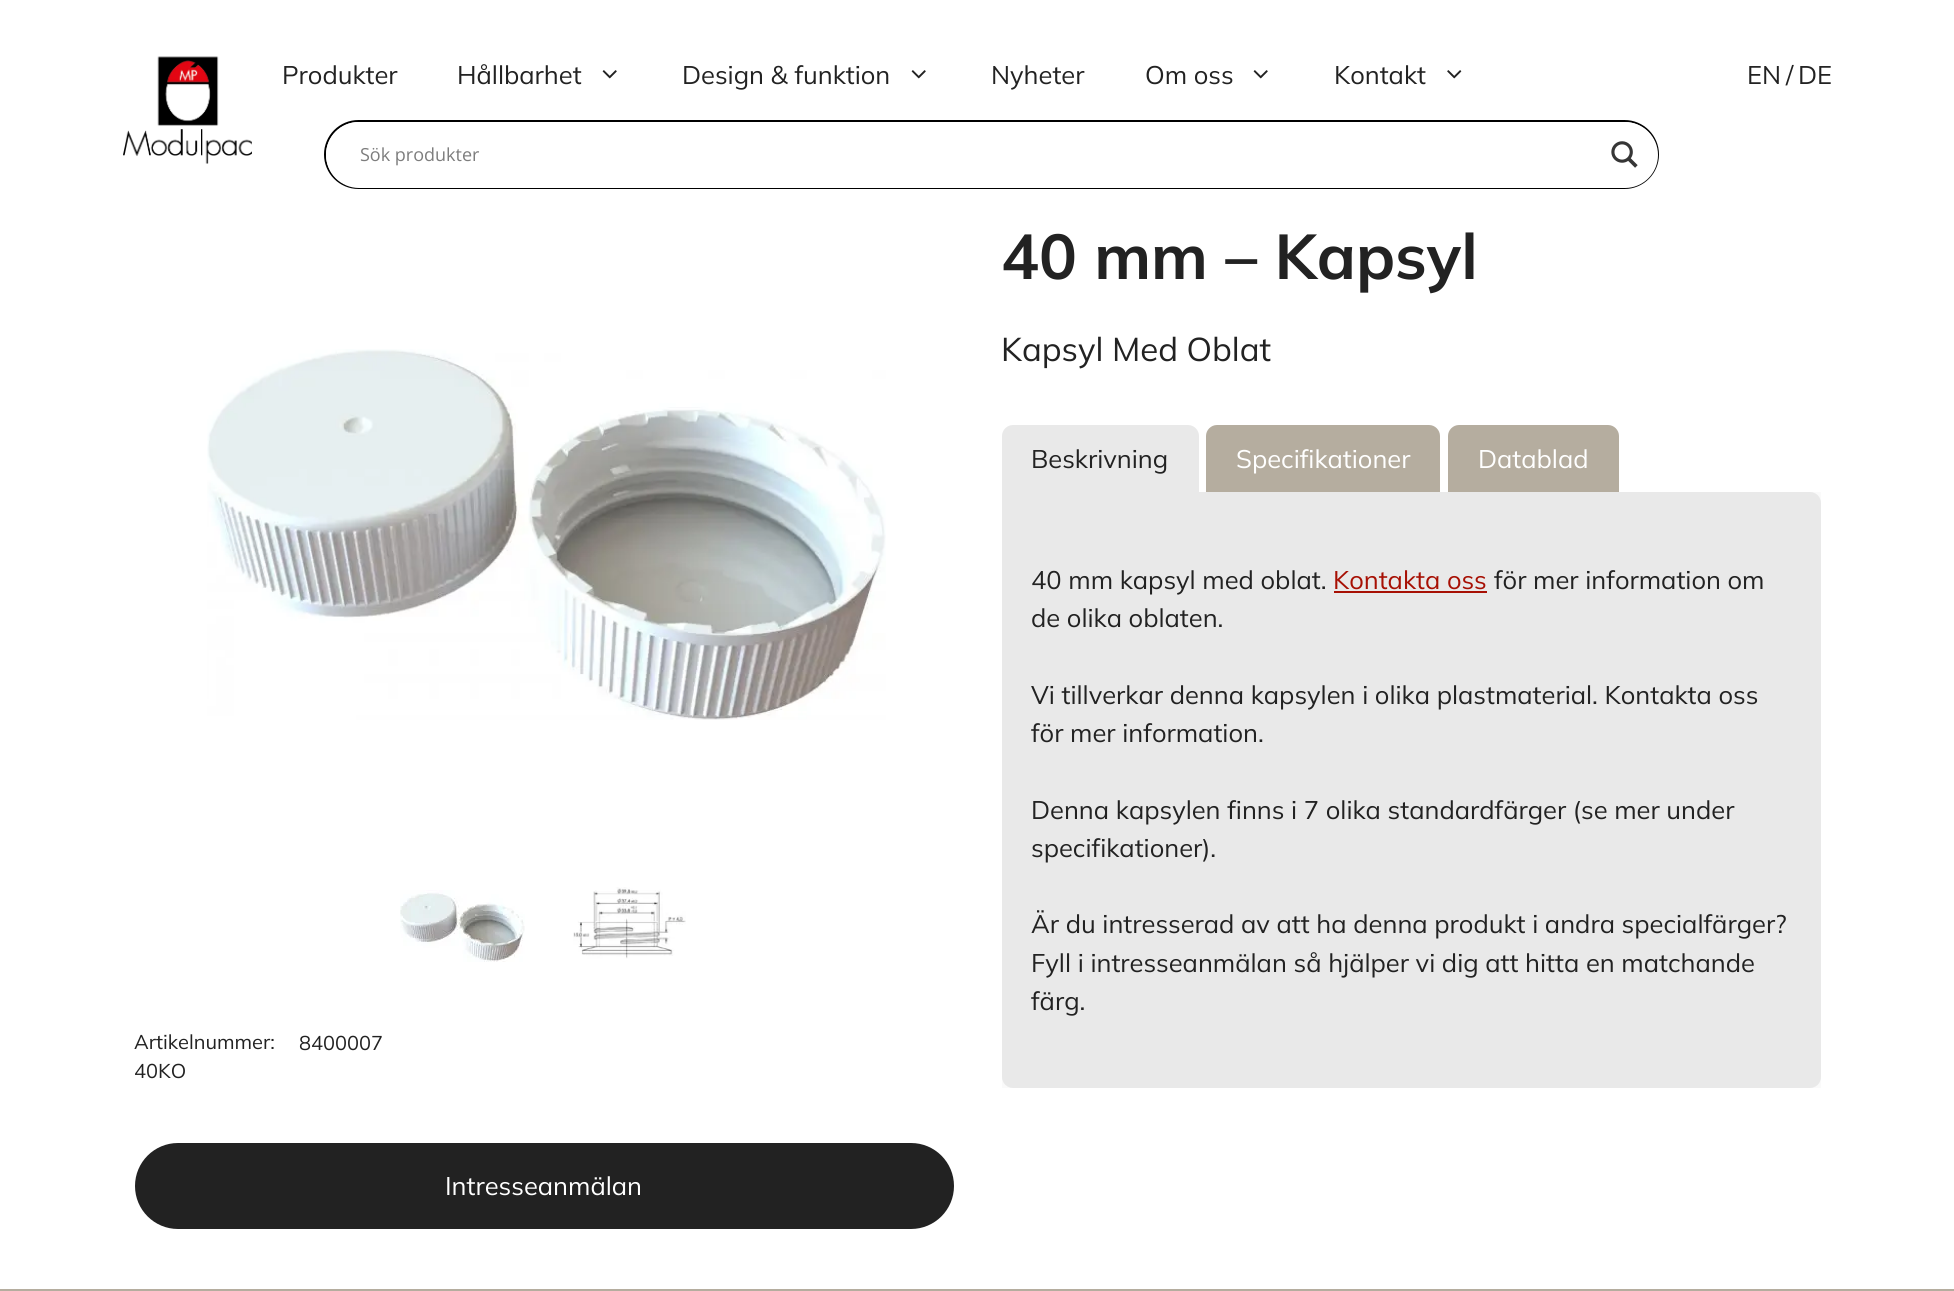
#include <cairo.h>
#include <math.h>
#include <stddef.h>


static void set_color(cairo_t *cr, unsigned color) {
    cairo_set_source_rgb(cr, (color >> 16) / 255.0, (color >> 8 & 255) / 255.0, (color & 255) / 255.0);
}

static void draw_text(cairo_t *cr, double x, double y, const char *s, const char *family, double size, int italic, int bold, unsigned color) {
    cairo_select_font_face(cr, family, italic ? CAIRO_FONT_SLANT_ITALIC : CAIRO_FONT_SLANT_NORMAL,
        bold ? CAIRO_FONT_WEIGHT_BOLD : CAIRO_FONT_WEIGHT_NORMAL);
    cairo_set_font_size(cr, size);
    set_color(cr, color);
    cairo_move_to(cr, x, y);
    cairo_show_text(cr, s);
}

static void fill_rect(cairo_t *cr, double x, double y, double w, double h, unsigned color) {
    set_color(cr, color);
    cairo_rectangle(cr, x, y, w, h);
    cairo_fill(cr);
}

static void rounded_rect(cairo_t *cr, double x, double y, double w, double h, double r) {
    cairo_new_sub_path(cr);
    cairo_arc(cr, x + w - r, y + h - r, r, 0, M_PI / 2);
    cairo_arc(cr, x + r, y + h - r, r, M_PI / 2, M_PI);
    cairo_arc(cr, x + r, y + r, r, M_PI, 1.5 * M_PI);
    cairo_arc(cr, x + w - r, y + r, r, 1.5 * M_PI, 2 * M_PI);
    cairo_close_path(cr);
}

static void draw_image(cairo_t *cr, const char *path, double x, double y, double w, double h) {
    cairo_surface_t *image = cairo_image_surface_create_from_png(path);
    cairo_save(cr);
    cairo_set_source_surface(cr, image, x, y);
    cairo_rectangle(cr, x, y, w, h);
    cairo_fill(cr);
    cairo_restore(cr);
    cairo_surface_destroy(image);
}

int main(void) {
    cairo_surface_t *surface = cairo_image_surface_create(CAIRO_FORMAT_RGB24, 1954, 1291);
    cairo_t *cr = cairo_create(surface);
    cairo_font_options_t *options = cairo_font_options_create();
    cairo_font_options_set_hint_metrics(options, CAIRO_HINT_METRICS_OFF);
    cairo_font_options_set_hint_style(options, CAIRO_HINT_STYLE_NONE);
    cairo_set_font_options(cr, options);
    cairo_set_miter_limit(cr, 4);
    set_color(cr, 0xFFFFFF);
    cairo_paint(cr);
    draw_image(cr, "assets/img1.png", 123, 56, 129, 108);
    draw_text(cr, 282, 84, "Produkter", "Mulish", 25.5, 0, 0, 0x222222);
    draw_text(cr, 457, 84, "Hållbarhet", "Mulish", 25.5, 0, 0, 0x222222);
    draw_image(cr, "assets/img2.png", 602, 70, 15, 9);
    draw_text(cr, 682, 84, "Design & funktion", "Mulish", 25.5, 0, 0, 0x222222);
    draw_image(cr, "assets/img2.png", 911, 70, 15, 9);
    draw_text(cr, 991, 84, "Nyheter", "Mulish", 25.5, 0, 0, 0x222222);
    draw_text(cr, 1145, 84, "Om oss", "Mulish", 25.5, 0, 0, 0x222222);
    draw_image(cr, "assets/img2.png", 1253, 70, 15, 9);
    draw_text(cr, 1334, 84, "Kontakt", "Mulish", 25.5, 0, 0, 0x222222);
    draw_image(cr, "assets/img3.png", 1447, 70, 15, 9);
    draw_text(cr, 1747, 84, "EN", "Mulish", 25.5, 0, 0, 0x222222);
    draw_text(cr, 1786, 84, "/", "Mulish", 25.5, 0, 0, 0x222222);
    draw_text(cr, 1798, 84, "DE", "Mulish", 25.5, 0, 0, 0x222222);
    rounded_rect(cr, 325, 121, 1333, 67, 33.5);
    set_color(cr, 0x000000);
    cairo_stroke(cr);
    set_color(cr, 0xFFFFFF);
    rounded_rect(cr, 326, 122, 1332, 66, 33);
    cairo_fill(cr);
    draw_text(cr, 360, 161, "Sök produkter", "Open Sans", 18, 0, 0, 0x7D7D7D);
    draw_image(cr, "assets/img4.png", 1611, 141, 27, 27);
    draw_text(cr, 1001, 279, "40 mm – Kapsyl", "Mulish", 63.25, 0, 1, 0x222222);
    draw_text(cr, 1001, 361, "Kapsyl Med Oblat", "Mulish", 33, 0, 0, 0x222222);
    set_color(cr, 0xE9E9E9);
    cairo_new_path(cr);
    cairo_move_to(cr, 1013, 425);
    cairo_line_to(cr, 1188, 425);
    cairo_curve_to(cr, 1194, 425, 1199, 430, 1199, 436);
    cairo_line_to(cr, 1199, 492);
    cairo_line_to(cr, 1002, 492);
    cairo_line_to(cr, 1002, 436);
    cairo_curve_to(cr, 1002, 430, 1007, 425, 1013, 425);
    cairo_close_path(cr);
    cairo_fill(cr);
    draw_text(cr, 1031, 468, "Beskrivning", "Mulish", 25.5, 0, 0, 0x222222);
    set_color(cr, 0xB5AD9F);
    cairo_new_path(cr);
    cairo_move_to(cr, 1217, 425);
    cairo_line_to(cr, 1429, 425);
    cairo_curve_to(cr, 1435, 425, 1440, 430, 1440, 436);
    cairo_line_to(cr, 1440, 492);
    cairo_line_to(cr, 1206, 492);
    cairo_line_to(cr, 1206, 436);
    cairo_curve_to(cr, 1206, 430, 1211, 425, 1217, 425);
    cairo_close_path(cr);
    cairo_fill(cr);
    draw_text(cr, 1236, 468, "Specifikationer", "Mulish", 25.5, 0, 0, 0xFFFFFF);
    set_color(cr, 0xB5AD9F);
    cairo_new_path(cr);
    cairo_move_to(cr, 1459, 425);
    cairo_line_to(cr, 1608, 425);
    cairo_curve_to(cr, 1614, 425, 1619, 430, 1619, 436);
    cairo_line_to(cr, 1619, 492);
    cairo_line_to(cr, 1448, 492);
    cairo_line_to(cr, 1448, 436);
    cairo_curve_to(cr, 1448, 430, 1453, 425, 1459, 425);
    cairo_close_path(cr);
    cairo_fill(cr);
    draw_text(cr, 1478, 468, "Datablad", "Mulish", 25.5, 0, 0, 0xFFFFFF);
    fill_rect(cr, 1002, 492, 819, 596, 0xFAFAFA);
    set_color(cr, 0xE9E9E9);
    cairo_new_path(cr);
    cairo_move_to(cr, 1002, 492);
    cairo_line_to(cr, 1810, 492);
    cairo_curve_to(cr, 1816, 492, 1821, 497, 1821, 503);
    cairo_line_to(cr, 1821, 1077);
    cairo_curve_to(cr, 1821, 1083, 1816, 1088, 1810, 1088);
    cairo_line_to(cr, 1013, 1088);
    cairo_curve_to(cr, 1007, 1088, 1002, 1083, 1002, 1077);
    cairo_close_path(cr);
    cairo_fill(cr);
    draw_text(cr, 1031, 589, "40 mm kapsyl med oblat.", "Mulish", 25.5, 0, 0, 0x222222);
    draw_text(cr, 1333, 589, "Kontakta oss", "Mulish", 25.5, 0, 0, 0xA71004);
    fill_rect(cr, 1334, 591, 153, 2, 0xA71004);
    draw_text(cr, 1494, 589, "för mer information om", "Mulish", 25.5, 0, 0, 0x222222);
    draw_text(cr, 1031, 627, "de olika oblaten.", "Mulish", 25.5, 0, 0, 0x222222);
    draw_text(cr, 1031, 704, "Vi tillverkar denna kapsylen i olika plastmaterial. Kontakta oss", "Mulish", 25.5, 0, 0, 0x222222);
    draw_text(cr, 1031, 742, "för mer information.", "Mulish", 25.5, 0, 0, 0x222222);
    draw_text(cr, 1031, 819, "Denna kapsylen finns i 7 olika standardfärger (se mer under", "Mulish", 25.5, 0, 0, 0x222222);
    draw_text(cr, 1031, 857, "specifikationer).", "Mulish", 25.5, 0, 0, 0x222222);
    draw_text(cr, 1031, 933, "Är du intresserad av att ha denna produkt i andra specialfärger?", "Mulish", 25.5, 0, 0, 0x222222);
    draw_text(cr, 1031, 972, "Fyll i intresseanmälan så hjälper vi dig att hitta en matchande", "Mulish", 25.5, 0, 0, 0x222222);
    draw_text(cr, 1031, 1010, "färg.", "Mulish", 25.5, 0, 0, 0x222222);
    draw_image(cr, "assets/img5.png", 207, 349, 679, 371);
    draw_image(cr, "assets/img6.png", 400, 890, 125, 72);
    draw_image(cr, "assets/img7.png", 573, 887, 113, 72);
    draw_text(cr, 134, 1049, "Artikelnummer:", "Mulish", 20, 0, 0, 0x222222);
    draw_text(cr, 299, 1050, "8400007", "Mulish", 20, 0, 0, 0x222222);
    draw_text(cr, 134, 1078, "40KO", "Mulish", 20, 0, 0, 0x222222);
    rounded_rect(cr, 135, 1143, 819, 86, 43);
    cairo_fill(cr);
    draw_text(cr, 445, 1195, "Intresseanmälan", "Mulish", 25.5, 0, 0, 0xFFFFFF);
    fill_rect(cr, 0, 1289, 1954, 2, 0xB5AD9F);
    cairo_surface_write_to_png(surface, "output.png");
    cairo_font_options_destroy(options);
    cairo_destroy(cr);
    cairo_surface_destroy(surface);
    return 0;
}
